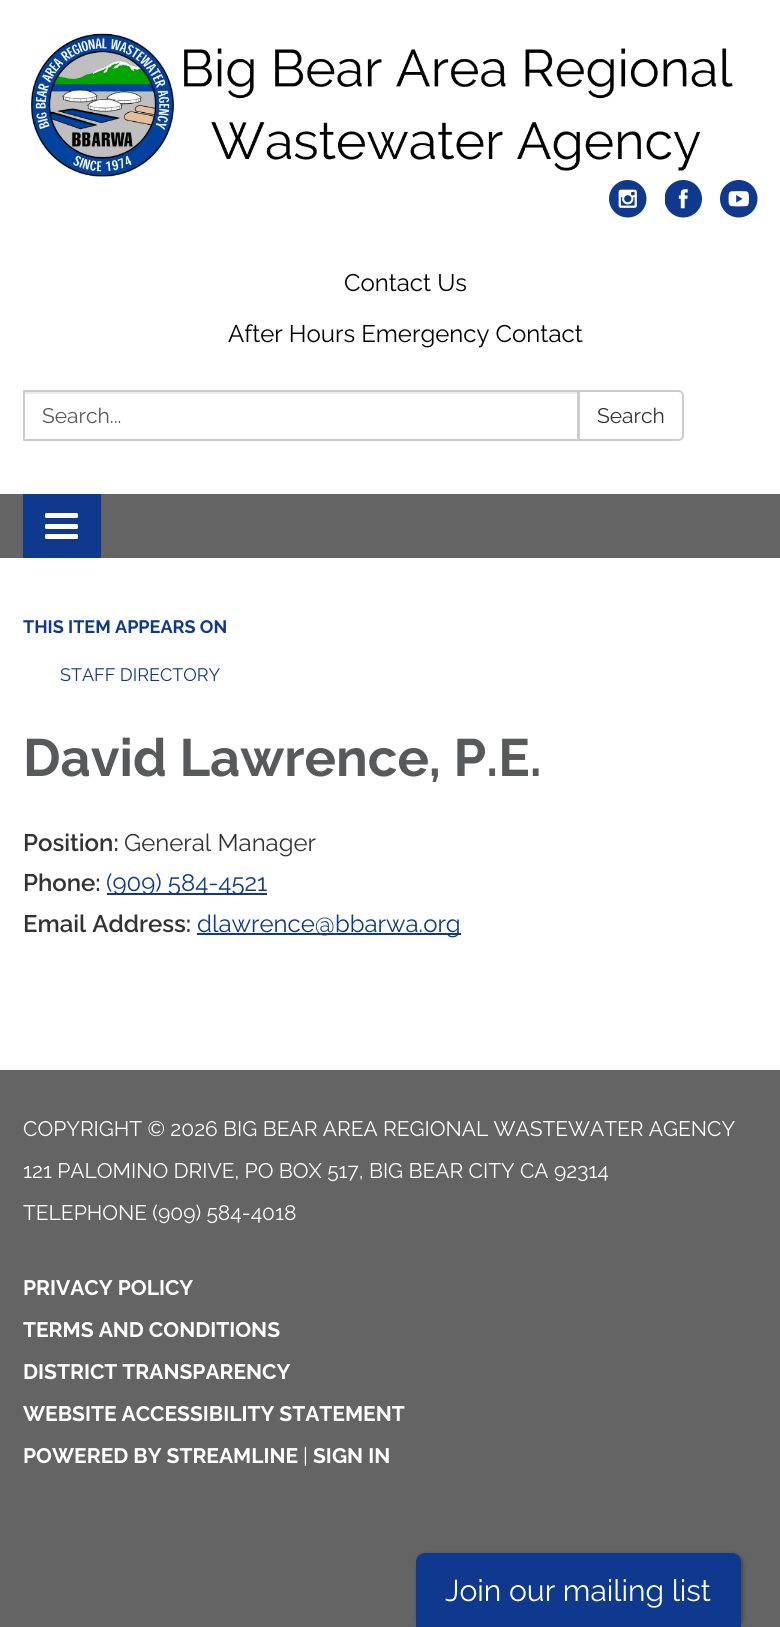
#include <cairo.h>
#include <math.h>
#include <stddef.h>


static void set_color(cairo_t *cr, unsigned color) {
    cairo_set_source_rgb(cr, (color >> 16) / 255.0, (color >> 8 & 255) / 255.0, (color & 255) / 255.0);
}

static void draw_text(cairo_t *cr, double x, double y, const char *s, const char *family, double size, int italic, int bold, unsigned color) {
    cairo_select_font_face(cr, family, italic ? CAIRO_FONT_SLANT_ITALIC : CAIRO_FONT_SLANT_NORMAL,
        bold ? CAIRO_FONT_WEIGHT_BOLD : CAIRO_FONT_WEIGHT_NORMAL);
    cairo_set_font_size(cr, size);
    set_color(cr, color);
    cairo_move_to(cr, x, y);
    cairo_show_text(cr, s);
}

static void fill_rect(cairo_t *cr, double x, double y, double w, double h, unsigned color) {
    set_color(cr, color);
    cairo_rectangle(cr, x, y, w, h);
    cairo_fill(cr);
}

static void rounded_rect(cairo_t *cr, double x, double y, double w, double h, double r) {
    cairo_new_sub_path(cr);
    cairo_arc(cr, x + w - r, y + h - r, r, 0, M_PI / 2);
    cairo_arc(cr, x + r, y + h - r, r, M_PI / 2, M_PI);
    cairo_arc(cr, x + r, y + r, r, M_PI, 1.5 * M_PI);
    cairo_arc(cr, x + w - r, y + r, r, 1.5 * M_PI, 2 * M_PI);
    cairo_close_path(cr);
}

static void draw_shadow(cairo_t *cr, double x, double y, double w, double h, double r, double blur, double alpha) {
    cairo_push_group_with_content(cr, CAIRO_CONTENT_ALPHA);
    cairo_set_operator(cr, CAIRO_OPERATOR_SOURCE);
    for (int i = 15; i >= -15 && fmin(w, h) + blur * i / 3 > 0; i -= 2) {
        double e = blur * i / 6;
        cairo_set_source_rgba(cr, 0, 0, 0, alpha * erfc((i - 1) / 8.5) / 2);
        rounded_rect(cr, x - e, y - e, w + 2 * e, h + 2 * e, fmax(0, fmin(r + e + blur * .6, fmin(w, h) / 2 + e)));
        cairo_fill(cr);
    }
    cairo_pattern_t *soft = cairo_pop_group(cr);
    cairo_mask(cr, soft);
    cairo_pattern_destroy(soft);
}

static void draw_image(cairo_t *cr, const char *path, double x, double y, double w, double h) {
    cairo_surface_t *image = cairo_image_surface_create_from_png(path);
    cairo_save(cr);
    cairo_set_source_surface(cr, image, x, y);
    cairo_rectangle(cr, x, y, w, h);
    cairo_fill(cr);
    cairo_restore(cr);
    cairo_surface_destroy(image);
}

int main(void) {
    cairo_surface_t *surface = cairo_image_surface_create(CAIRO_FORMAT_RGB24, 780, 1627);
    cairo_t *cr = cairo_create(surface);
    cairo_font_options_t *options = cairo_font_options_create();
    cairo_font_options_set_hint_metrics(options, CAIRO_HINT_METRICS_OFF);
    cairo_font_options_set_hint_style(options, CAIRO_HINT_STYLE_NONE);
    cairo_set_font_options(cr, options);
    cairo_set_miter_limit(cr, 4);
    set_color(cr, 0x646464);
    cairo_paint(cr);
    fill_rect(cr, 0, 0, 780, 494, 0xFFFFFF);
    draw_image(cr, "assets/img1.png", 31, 33, 702, 144);
    draw_image(cr, "assets/img2.png", 609, 180, 38, 38);
    draw_image(cr, "assets/img3.png", 665, 180, 37, 38);
    draw_image(cr, "assets/img4.png", 720, 180, 38, 38);
    draw_text(cr, 344, 291, "Contact Us", "Raleway", 24, 0, 0, 0x000000);
    draw_text(cr, 228, 342, "After Hours Emergency Contact", "Raleway", 24, 0, 0, 0x000000);
    fill_rect(cr, 24, 392, 554, 2, 0xECECEC);
    cairo_rectangle(cr, 24, 391, 554, 49);
    set_color(cr, 0xCCCCCC);
    cairo_stroke(cr);
    draw_text(cr, 42, 423, "Search...", "Raleway", 21, 0, 0, 0x58595B);
    set_color(cr, 0xFFFFFF);
    cairo_new_path(cr);
    cairo_move_to(cr, 579, 391);
    cairo_line_to(cr, 678, 391);
    cairo_curve_to(cr, 681, 391, 683, 393, 683, 396);
    cairo_line_to(cr, 683, 435);
    cairo_curve_to(cr, 683, 438, 681, 440, 678, 440);
    cairo_line_to(cr, 579, 440);
    cairo_close_path(cr);
    cairo_fill_preserve(cr);
    set_color(cr, 0xCCCCCC);
    cairo_stroke(cr);
    draw_text(cr, 597, 423, "Search", "Raleway", 21, 0, 0, 0x333333);
    fill_rect(cr, 23, 494, 78, 64, 0x0E398E);
    set_color(cr, 0xFFFFFF);
    rounded_rect(cr, 45, 513, 33, 5, 1.5);
    cairo_fill(cr);
    rounded_rect(cr, 45, 524, 33, 5, 1.5);
    cairo_fill(cr);
    rounded_rect(cr, 45, 534, 33, 5, 1.5);
    cairo_fill(cr);
    fill_rect(cr, 0, 558, 780, 512, 0xFFFFFF);
    draw_text(cr, 23, 633, "THIS ITEM APPEARS ON", "Raleway", 18, 0, 1, 0x0E398E);
    draw_text(cr, 60, 681, "STAFF DIRECTORY", "Raleway", 18, 0, 0, 0x0E398E);
    draw_text(cr, 23, 776, "David Lawrence, P.E.", "Raleway", 52.5, 0, 1, 0x58595B);
    draw_text(cr, 23, 851, "Position:", "Raleway SemiBold", 24, 0, 0, 0x333333);
    draw_text(cr, 124, 851, "General Manager", "Raleway", 24, 0, 0, 0x333333);
    draw_text(cr, 23, 891, "Phone:", "Raleway SemiBold", 24, 0, 0, 0x333333);
    fill_rect(cr, 107, 893, 160, 2, 0x0E398E);
    draw_text(cr, 106, 891, "(909) 584-4521", "Raleway", 24, 0, 0, 0x0E398E);
    draw_text(cr, 23, 932, "Email Address:", "Raleway SemiBold", 24, 0, 0, 0x333333);
    fill_rect(cr, 197, 933, 264, 2, 0x0E398E);
    draw_text(cr, 197, 932, "dlawrence@bbarwa.org", "Raleway", 24, 0, 0, 0x0E398E);
    draw_text(cr, 23, 1136, "COPYRIGHT © 2026 BIG BEAR AREA REGIONAL WASTEWATER AGENCY", "Raleway", 21, 0, 0, 0xFFFFFF);
    draw_text(cr, 23, 1178, "121 PALOMINO DRIVE, PO BOX 517, BIG BEAR CITY CA 92314", "Raleway", 21, 0, 0, 0xFFFFFF);
    draw_text(cr, 23, 1220, "TELEPHONE (909) 584-4018", "Raleway", 21, 0, 0, 0xFFFFFF);
    draw_text(cr, 23, 1295, "PRIVACY POLICY", "Raleway", 21, 0, 1, 0xFFFFFF);
    draw_text(cr, 23, 1337, "TERMS AND CONDITIONS", "Raleway", 21, 0, 1, 0xFFFFFF);
    draw_text(cr, 23, 1379, "DISTRICT TRANSPARENCY", "Raleway", 21, 0, 1, 0xFFFFFF);
    draw_text(cr, 23, 1421, "WEBSITE ACCESSIBILITY STATEMENT", "Raleway", 21, 0, 1, 0xFFFFFF);
    draw_text(cr, 23, 1463, "POWERED BY STREAMLINE", "Raleway", 21, 0, 1, 0xFFFFFF);
    draw_text(cr, 303, 1463, "|", "Raleway", 21, 0, 0, 0xFFFFFF);
    draw_text(cr, 313, 1463, "SIGN IN", "Raleway", 21, 0, 1, 0xFFFFFF);
    set_color(cr, 0x000000);
    draw_shadow(cr, 417, 1554, 326, 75, 9, 2, 0.3);
    set_color(cr, 0x0E398E);
    cairo_new_path(cr);
    cairo_move_to(cr, 425, 1553);
    cairo_line_to(cr, 732, 1553);
    cairo_curve_to(cr, 737, 1553, 741, 1557, 741, 1562);
    cairo_line_to(cr, 741, 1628);
    cairo_line_to(cr, 416, 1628);
    cairo_line_to(cr, 416, 1562);
    cairo_curve_to(cr, 416, 1557, 420, 1553, 425, 1553);
    cairo_close_path(cr);
    cairo_fill(cr);
    draw_text(cr, 445, 1601, "Join our mailing list", "Raleway", 30, 0, 0, 0xFFFFFF);
    cairo_surface_write_to_png(surface, "output.png");
    cairo_font_options_destroy(options);
    cairo_destroy(cr);
    cairo_surface_destroy(surface);
    return 0;
}
